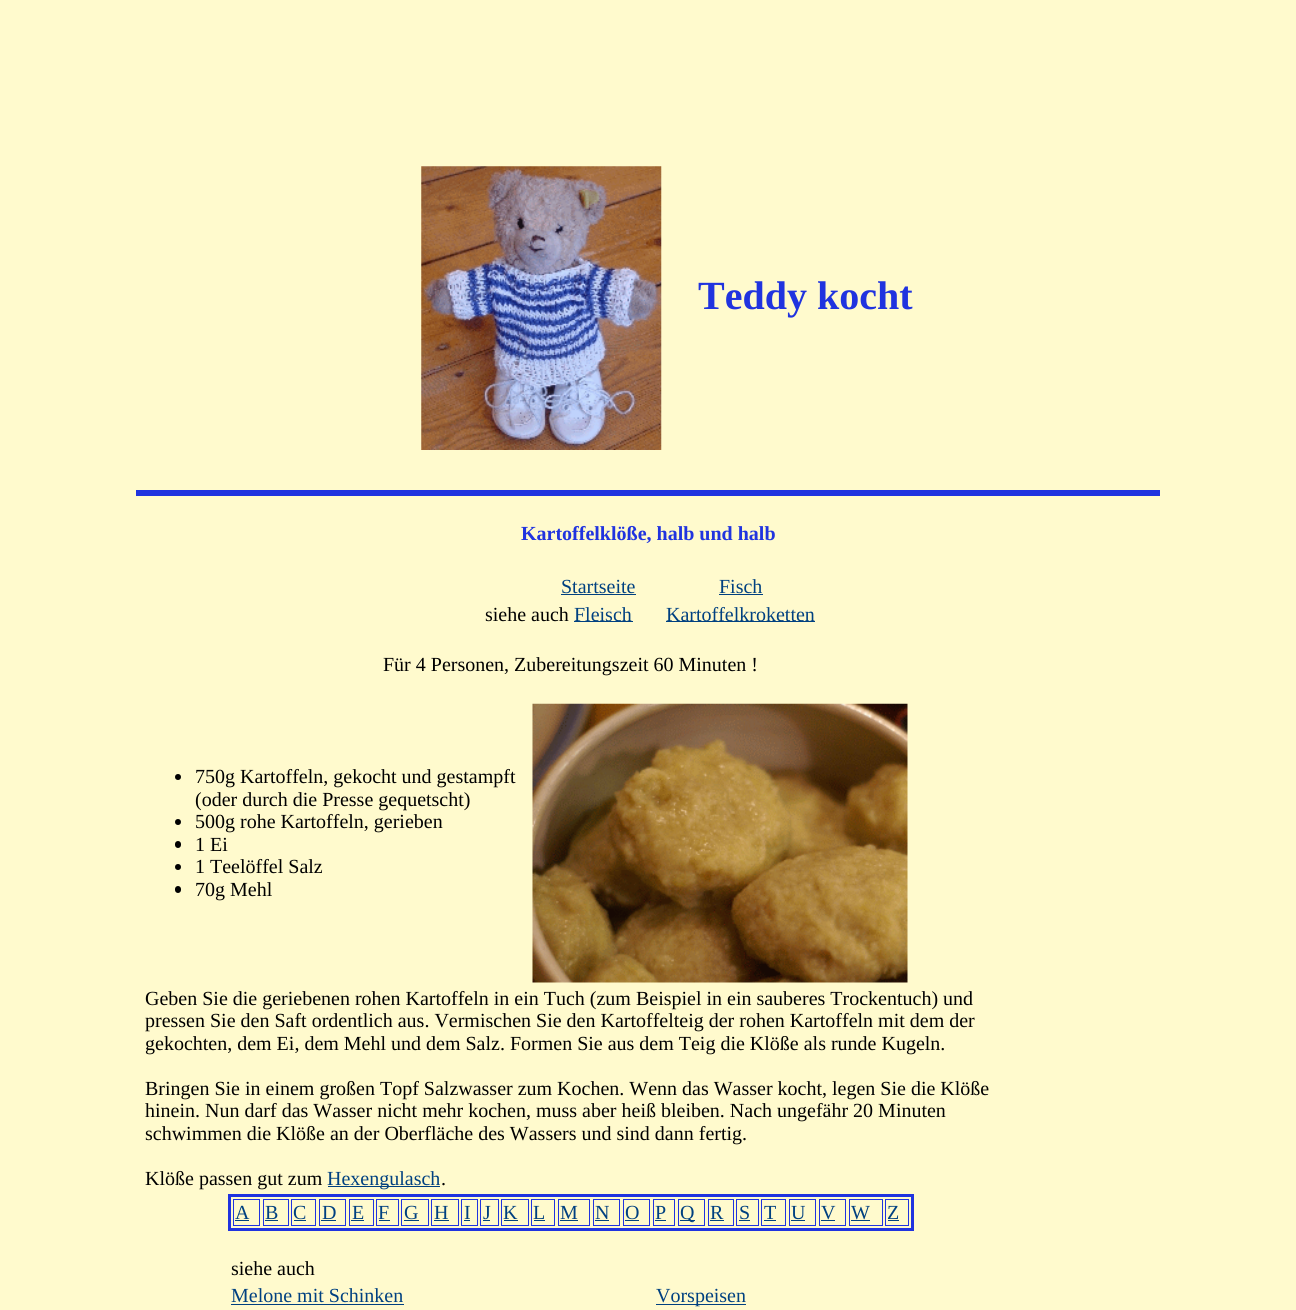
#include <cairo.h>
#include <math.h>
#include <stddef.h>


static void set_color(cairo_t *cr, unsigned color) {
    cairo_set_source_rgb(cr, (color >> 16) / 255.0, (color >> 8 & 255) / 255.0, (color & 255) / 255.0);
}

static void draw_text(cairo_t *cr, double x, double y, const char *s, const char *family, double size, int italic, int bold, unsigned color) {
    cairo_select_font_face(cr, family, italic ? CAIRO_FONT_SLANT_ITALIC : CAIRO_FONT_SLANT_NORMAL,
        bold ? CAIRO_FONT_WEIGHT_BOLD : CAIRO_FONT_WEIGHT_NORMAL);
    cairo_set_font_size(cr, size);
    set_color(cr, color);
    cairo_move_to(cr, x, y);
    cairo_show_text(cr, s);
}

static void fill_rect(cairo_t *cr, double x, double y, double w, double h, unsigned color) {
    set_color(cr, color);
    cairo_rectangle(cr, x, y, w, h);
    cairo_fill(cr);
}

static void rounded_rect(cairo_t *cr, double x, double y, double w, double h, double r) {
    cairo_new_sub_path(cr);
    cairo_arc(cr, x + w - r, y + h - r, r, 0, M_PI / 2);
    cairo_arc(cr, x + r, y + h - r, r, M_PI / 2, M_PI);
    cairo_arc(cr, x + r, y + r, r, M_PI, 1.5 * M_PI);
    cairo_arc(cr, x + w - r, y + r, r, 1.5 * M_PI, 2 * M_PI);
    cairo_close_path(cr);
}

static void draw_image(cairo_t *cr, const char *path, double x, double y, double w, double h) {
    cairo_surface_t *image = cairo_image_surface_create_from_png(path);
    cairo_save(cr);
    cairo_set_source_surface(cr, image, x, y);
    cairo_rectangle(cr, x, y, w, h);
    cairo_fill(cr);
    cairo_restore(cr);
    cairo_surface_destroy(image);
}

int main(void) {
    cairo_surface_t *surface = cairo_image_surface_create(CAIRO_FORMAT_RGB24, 1296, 1310);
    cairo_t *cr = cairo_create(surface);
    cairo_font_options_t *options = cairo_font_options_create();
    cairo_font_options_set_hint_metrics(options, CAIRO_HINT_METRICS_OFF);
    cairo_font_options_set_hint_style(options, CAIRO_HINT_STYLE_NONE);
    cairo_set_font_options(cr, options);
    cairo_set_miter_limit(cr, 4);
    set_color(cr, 0xFFFACD);
    cairo_paint(cr);
    draw_image(cr, "assets/img1.png", 421, 166, 241, 284);
    draw_text(cr, 698, 309, "Teddy kocht", "Liberation Serif", 40, 0, 1, 0x2033DF);
    fill_rect(cr, 136, 490, 1024, 6, 0x2033DF);
    draw_text(cr, 521, 540, "Kartoffelklöße, halb und halb", "Liberation Serif", 20, 0, 1, 0x2033DF);
    draw_text(cr, 561, 593, "Startseite", "Liberation Serif", 20, 0, 0, 0x004080);
    fill_rect(cr, 561, 594, 75, 1, 0x004080);
    draw_text(cr, 719, 593, "Fisch", "Liberation Serif", 20, 0, 0, 0x004080);
    fill_rect(cr, 719, 594, 44, 1, 0x004080);
    draw_text(cr, 485, 621, "siehe auch", "Liberation Serif", 20, 0, 0, 0x000000);
    fill_rect(cr, 574, 621, 59, 1, 0x004080);
    draw_text(cr, 574, 621, "Fleisch", "Liberation Serif", 20, 0, 0, 0x004080);
    fill_rect(cr, 666, 621, 149, 1, 0x004080);
    draw_text(cr, 666, 621, "Kartoffelkroketten", "Liberation Serif", 20, 0, 0, 0x004080);
    draw_text(cr, 383, 671, "Für 4 Personen, Zubereitungszeit 60 Minuten !", "Liberation Serif", 20, 0, 0, 0x000000);
    cairo_new_path(cr);
    cairo_arc(cr, 178, 777, 3, 0, 2 * M_PI);
    cairo_fill(cr);
    draw_text(cr, 195, 783, "750g Kartoffeln, gekocht und gestampft", "Liberation Serif", 20, 0, 0, 0x000000);
    draw_text(cr, 195, 806, "(oder durch die Presse gequetscht)", "Liberation Serif", 20, 0, 0, 0x000000);
    cairo_new_path(cr);
    cairo_arc(cr, 178, 822, 3, 0, 2 * M_PI);
    cairo_fill(cr);
    draw_text(cr, 195, 828, "500g rohe Kartoffeln, gerieben", "Liberation Serif", 20, 0, 0, 0x000000);
    rounded_rect(cr, 175, 841, 6, 7, 3);
    cairo_fill(cr);
    draw_text(cr, 195, 851, "1 Ei", "Liberation Serif", 20, 0, 0, 0x000000);
    cairo_new_path(cr);
    cairo_arc(cr, 178, 867, 3, 0, 2 * M_PI);
    cairo_fill(cr);
    draw_text(cr, 195, 873, "1 Teelöffel Salz", "Liberation Serif", 20, 0, 0, 0x000000);
    rounded_rect(cr, 175, 886, 6, 7, 3);
    cairo_fill(cr);
    draw_text(cr, 195, 896, "70g Mehl", "Liberation Serif", 20, 0, 0, 0x000000);
    draw_image(cr, "assets/img2.png", 532, 703, 376, 280);
    draw_text(cr, 145, 1005, "Geben Sie die geriebenen rohen Kartoffeln in ein Tuch (zum Beispiel in ein sauberes Trockentuch) und", "Liberation Serif", 20, 0, 0, 0x000000);
    draw_text(cr, 145, 1027, "pressen Sie den Saft ordentlich aus. Vermischen Sie den Kartoffelteig der rohen Kartoffeln mit dem der", "Liberation Serif", 20, 0, 0, 0x000000);
    draw_text(cr, 145, 1050, "gekochten, dem Ei, dem Mehl und dem Salz. Formen Sie aus dem Teig die Klöße als runde Kugeln.", "Liberation Serif", 20, 0, 0, 0x000000);
    draw_text(cr, 145, 1095, "Bringen Sie in einem großen Topf Salzwasser zum Kochen. Wenn das Wasser kocht, legen Sie die Klöße", "Liberation Serif", 20, 0, 0, 0x000000);
    draw_text(cr, 145, 1117, "hinein. Nun darf das Wasser nicht mehr kochen, muss aber heiß bleiben. Nach ungefähr 20 Minuten", "Liberation Serif", 20, 0, 0, 0x000000);
    draw_text(cr, 145, 1140, "schwimmen die Klöße an der Oberfläche des Wassers und sind dann fertig.", "Liberation Serif", 20, 0, 0, 0x000000);
    draw_text(cr, 145, 1185, "Klöße passen gut zum", "Liberation Serif", 20, 0, 0, 0x000000);
    fill_rect(cr, 328, 1186, 112, 1, 0x004080);
    draw_text(cr, 327, 1185, "Hexengulasch", "Liberation Serif", 20, 0, 0, 0x004080);
    draw_text(cr, 441, 1185, ".", "Liberation Serif", 20, 0, 0, 0x000000);
    cairo_rectangle(cr, 229.5, 1195.5, 683, 34);
    set_color(cr, 0x2033DF);
    cairo_set_line_width(cr, 3);
    cairo_stroke(cr);
    cairo_rectangle(cr, 233.5, 1199.5, 26, 26);
    cairo_set_line_width(cr, 1);
    cairo_stroke(cr);
    draw_text(cr, 235, 1219, "A", "Liberation Serif", 20, 0, 0, 0x004080);
    fill_rect(cr, 235, 1220, 14, 1, 0x004080);
    cairo_rectangle(cr, 263.5, 1199.5, 25, 26);
    set_color(cr, 0x2033DF);
    cairo_stroke(cr);
    draw_text(cr, 265, 1219, "B", "Liberation Serif", 20, 0, 0, 0x004080);
    fill_rect(cr, 265, 1220, 13, 1, 0x004080);
    cairo_rectangle(cr, 291.5, 1199.5, 24, 26);
    set_color(cr, 0x2033DF);
    cairo_stroke(cr);
    draw_text(cr, 293, 1219, "C", "Liberation Serif", 20, 0, 0, 0x004080);
    fill_rect(cr, 294, 1220, 12, 1, 0x004080);
    cairo_rectangle(cr, 319.5, 1199.5, 26, 26);
    set_color(cr, 0x2033DF);
    cairo_stroke(cr);
    draw_text(cr, 322, 1219, "D", "Liberation Serif", 20, 0, 0, 0x004080);
    fill_rect(cr, 321, 1220, 15, 1, 0x004080);
    cairo_rectangle(cr, 349.5, 1199.5, 24, 26);
    set_color(cr, 0x2033DF);
    cairo_stroke(cr);
    draw_text(cr, 352, 1219, "E", "Liberation Serif", 20, 0, 0, 0x004080);
    fill_rect(cr, 351, 1220, 13, 1, 0x004080);
    cairo_rectangle(cr, 376.5, 1199.5, 22, 26);
    set_color(cr, 0x2033DF);
    cairo_stroke(cr);
    draw_text(cr, 378, 1219, "F", "Liberation Serif", 20, 0, 0, 0x004080);
    fill_rect(cr, 379, 1220, 11, 1, 0x004080);
    cairo_rectangle(cr, 401.5, 1199.5, 27, 26);
    set_color(cr, 0x2033DF);
    cairo_stroke(cr);
    draw_text(cr, 404, 1219, "G", "Liberation Serif", 20, 0, 0, 0x004080);
    fill_rect(cr, 404, 1220, 15, 1, 0x004080);
    cairo_rectangle(cr, 431.5, 1199.5, 27, 26);
    set_color(cr, 0x2033DF);
    cairo_stroke(cr);
    draw_text(cr, 434, 1219, "H", "Liberation Serif", 20, 0, 0, 0x004080);
    fill_rect(cr, 434, 1220, 15, 1, 0x004080);
    cairo_rectangle(cr, 461.5, 1199.5, 16, 26);
    set_color(cr, 0x2033DF);
    cairo_stroke(cr);
    draw_text(cr, 464, 1219, "I", "Liberation Serif", 20, 0, 0, 0x004080);
    fill_rect(cr, 464, 1220, 6, 1, 0x004080);
    cairo_rectangle(cr, 480.5, 1199.5, 18, 26);
    set_color(cr, 0x2033DF);
    cairo_stroke(cr);
    draw_text(cr, 483, 1219, "J", "Liberation Serif", 20, 0, 0, 0x004080);
    fill_rect(cr, 483, 1220, 7, 1, 0x004080);
    cairo_rectangle(cr, 501.5, 1199.5, 27, 26);
    set_color(cr, 0x2033DF);
    cairo_stroke(cr);
    draw_text(cr, 503, 1219, "K", "Liberation Serif", 20, 0, 0, 0x004080);
    fill_rect(cr, 504, 1220, 14, 1, 0x004080);
    cairo_rectangle(cr, 531.5, 1199.5, 23, 26);
    set_color(cr, 0x2033DF);
    cairo_stroke(cr);
    draw_text(cr, 533, 1219, "L", "Liberation Serif", 20, 0, 0, 0x004080);
    fill_rect(cr, 534, 1220, 11, 1, 0x004080);
    cairo_rectangle(cr, 558.5, 1199.5, 31, 26);
    set_color(cr, 0x2033DF);
    cairo_stroke(cr);
    draw_text(cr, 560, 1219, "M", "Liberation Serif", 20, 0, 0, 0x004080);
    fill_rect(cr, 560, 1220, 18, 1, 0x004080);
    cairo_rectangle(cr, 593.5, 1199.5, 26, 26);
    set_color(cr, 0x2033DF);
    cairo_stroke(cr);
    draw_text(cr, 595, 1219, "N", "Liberation Serif", 20, 0, 0, 0x004080);
    fill_rect(cr, 595, 1220, 14, 1, 0x004080);
    cairo_rectangle(cr, 623.5, 1199.5, 26, 26);
    set_color(cr, 0x2033DF);
    cairo_stroke(cr);
    draw_text(cr, 625, 1219, "O", "Liberation Serif", 20, 0, 0, 0x004080);
    fill_rect(cr, 625, 1220, 14, 1, 0x004080);
    cairo_rectangle(cr, 653.5, 1199.5, 21, 26);
    set_color(cr, 0x2033DF);
    cairo_stroke(cr);
    draw_text(cr, 655, 1219, "P", "Liberation Serif", 20, 0, 0, 0x004080);
    fill_rect(cr, 655, 1220, 11, 1, 0x004080);
    cairo_rectangle(cr, 678.5, 1199.5, 26, 26);
    set_color(cr, 0x2033DF);
    cairo_stroke(cr);
    fill_rect(cr, 680, 1220, 15, 1, 0x004080);
    draw_text(cr, 680, 1219, "Q", "Liberation Serif", 20, 0, 0, 0x004080);
    cairo_rectangle(cr, 708.5, 1199.5, 25, 26);
    set_color(cr, 0x2033DF);
    cairo_stroke(cr);
    draw_text(cr, 710, 1219, "R", "Liberation Serif", 20, 0, 0, 0x004080);
    fill_rect(cr, 710, 1220, 14, 1, 0x004080);
    cairo_rectangle(cr, 736.5, 1199.5, 22, 26);
    set_color(cr, 0x2033DF);
    cairo_stroke(cr);
    draw_text(cr, 739, 1219, "S", "Liberation Serif", 20, 0, 0, 0x004080);
    fill_rect(cr, 739, 1220, 11, 1, 0x004080);
    cairo_rectangle(cr, 761.5, 1199.5, 24, 26);
    set_color(cr, 0x2033DF);
    cairo_stroke(cr);
    draw_text(cr, 764, 1219, "T", "Liberation Serif", 20, 0, 0, 0x004080);
    fill_rect(cr, 764, 1220, 12, 1, 0x004080);
    cairo_rectangle(cr, 789.5, 1199.5, 26, 26);
    set_color(cr, 0x2033DF);
    cairo_stroke(cr);
    draw_text(cr, 791, 1219, "U", "Liberation Serif", 20, 0, 0, 0x004080);
    fill_rect(cr, 791, 1220, 14, 1, 0x004080);
    cairo_rectangle(cr, 819.5, 1199.5, 26, 26);
    set_color(cr, 0x2033DF);
    cairo_stroke(cr);
    draw_text(cr, 821, 1219, "V", "Liberation Serif", 20, 0, 0, 0x004080);
    fill_rect(cr, 821, 1220, 14, 1, 0x004080);
    cairo_rectangle(cr, 849.5, 1199.5, 33, 26);
    set_color(cr, 0x2033DF);
    cairo_stroke(cr);
    draw_text(cr, 851, 1219, "W", "Liberation Serif", 20, 0, 0, 0x004080);
    fill_rect(cr, 851, 1220, 19, 1, 0x004080);
    cairo_rectangle(cr, 885.5, 1199.5, 23, 26);
    set_color(cr, 0x2033DF);
    cairo_stroke(cr);
    draw_text(cr, 887, 1219, "Z", "Liberation Serif", 20, 0, 0, 0x004080);
    fill_rect(cr, 888, 1220, 11, 1, 0x004080);
    draw_text(cr, 231, 1275, "siehe auch", "Liberation Serif", 20, 0, 0, 0x000000);
    draw_text(cr, 231, 1302, "Melone mit Schinken", "Liberation Serif", 20, 0, 0, 0x004080);
    fill_rect(cr, 231, 1304, 173, 1, 0x004080);
    fill_rect(cr, 656, 1304, 90, 1, 0x004080);
    draw_text(cr, 656, 1302, "Vorspeisen", "Liberation Serif", 20, 0, 0, 0x004080);
    cairo_surface_write_to_png(surface, "output.png");
    cairo_font_options_destroy(options);
    cairo_destroy(cr);
    cairo_surface_destroy(surface);
    return 0;
}
